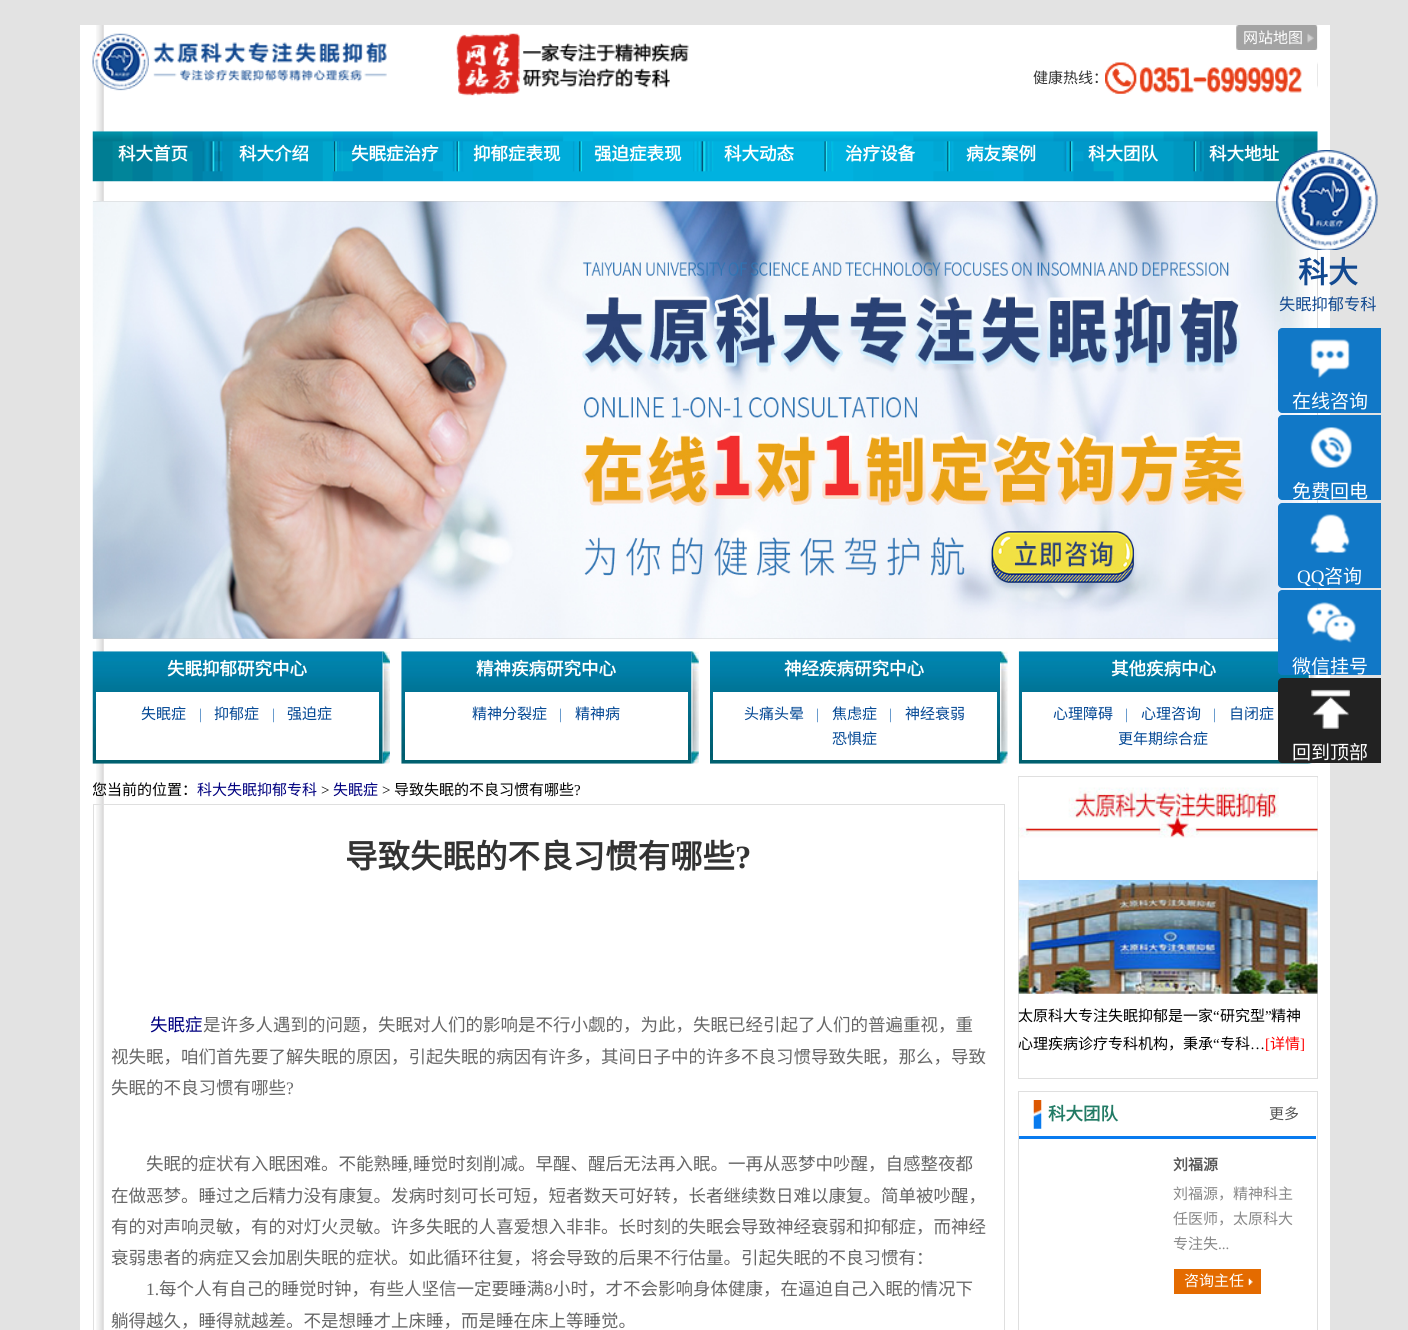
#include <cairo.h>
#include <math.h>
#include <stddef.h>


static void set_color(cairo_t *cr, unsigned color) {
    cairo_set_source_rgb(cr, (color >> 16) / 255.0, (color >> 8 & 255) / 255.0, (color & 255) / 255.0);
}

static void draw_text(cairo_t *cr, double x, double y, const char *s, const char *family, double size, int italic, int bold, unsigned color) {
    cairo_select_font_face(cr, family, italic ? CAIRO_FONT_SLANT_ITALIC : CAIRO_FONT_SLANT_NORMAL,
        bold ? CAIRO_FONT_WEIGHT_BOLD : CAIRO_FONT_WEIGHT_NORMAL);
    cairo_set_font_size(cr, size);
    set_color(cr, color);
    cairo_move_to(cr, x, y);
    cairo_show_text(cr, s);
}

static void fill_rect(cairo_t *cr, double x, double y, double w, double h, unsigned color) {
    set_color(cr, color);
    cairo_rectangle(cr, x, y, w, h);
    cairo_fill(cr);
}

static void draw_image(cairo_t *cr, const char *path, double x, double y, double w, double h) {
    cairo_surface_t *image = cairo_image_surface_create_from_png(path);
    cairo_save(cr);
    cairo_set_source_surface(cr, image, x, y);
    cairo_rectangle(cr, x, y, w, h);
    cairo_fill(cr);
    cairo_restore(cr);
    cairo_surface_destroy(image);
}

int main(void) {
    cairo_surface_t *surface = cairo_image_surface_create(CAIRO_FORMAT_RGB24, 1408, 1330);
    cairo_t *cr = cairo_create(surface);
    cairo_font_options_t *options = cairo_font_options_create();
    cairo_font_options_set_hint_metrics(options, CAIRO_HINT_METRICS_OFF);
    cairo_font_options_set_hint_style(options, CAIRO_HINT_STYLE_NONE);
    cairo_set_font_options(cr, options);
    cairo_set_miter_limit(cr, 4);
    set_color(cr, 0xE3E3E3);
    cairo_paint(cr);
    fill_rect(cr, 80, 25, 1250, 1305, 0xFFFFFF);
    draw_image(cr, "assets/img1.png", 96, 25, 8, 1305);
    draw_image(cr, "assets/img2.png", 92, 33, 597, 63);
    draw_image(cr, "assets/img3.png", 1236, 25, 82, 25);
    draw_text(cr, 1243, 43, "网站地图", "Noto Sans CJK SC", 15, 0, 0, 0xFFFFFF);
    draw_image(cr, "assets/img4.png", 1105, 62, 213, 32);
    draw_text(cr, 1033, 83, "健康热线：", "Noto Sans CJK SC", 15, 0, 0, 0x333333);
    draw_image(cr, "assets/img5.png", 92, 131, 1226, 51);
    draw_text(cr, 118, 160, "科大首页", "Noto Sans CJK SC", 17.5, 0, 1, 0xFFFFFF);
    draw_text(cr, 239, 160, "科大介绍", "Noto Sans CJK SC", 17.5, 0, 1, 0xFFFFFF);
    draw_text(cr, 351, 160, "失眠症治疗", "Noto Sans CJK SC", 17.5, 0, 1, 0xFFFFFF);
    draw_text(cr, 473, 160, "抑郁症表现", "Noto Sans CJK SC", 17.5, 0, 1, 0xFFFFFF);
    draw_text(cr, 594, 160, "强迫症表现", "Noto Sans CJK SC", 17.5, 0, 1, 0xFFFFFF);
    draw_text(cr, 724, 160, "科大动态", "Noto Sans CJK SC", 17.5, 0, 1, 0xFFFFFF);
    draw_text(cr, 845, 160, "治疗设备", "Noto Sans CJK SC", 17.5, 0, 1, 0xFFFFFF);
    draw_text(cr, 966, 160, "病友案例", "Noto Sans CJK SC", 17.5, 0, 1, 0xFFFFFF);
    draw_text(cr, 1088, 160, "科大团队", "Noto Sans CJK SC", 17.5, 0, 1, 0xFFFFFF);
    draw_text(cr, 1209, 160, "科大地址", "Noto Sans CJK SC", 17.5, 0, 1, 0xFFFFFF);
    fill_rect(cr, 93, 201, 1225, 438, 0xCCCCCC);
    draw_image(cr, "assets/img6.png", 92, 201, 1226, 438);
    draw_image(cr, "assets/img7.png", 1276, 150, 102, 100);
    draw_text(cr, 1298, 283, "科大", "Noto Sans CJK SC", 30, 0, 1, 0x124990);
    draw_text(cr, 1279, 310, "失眠抑郁专科", "Noto Sans CJK SC", 16.25, 0, 0, 0x124990);
    draw_image(cr, "assets/img8.png", 382, 651, 8, 113);
    draw_image(cr, "assets/img9.png", 92, 651, 291, 113);
    draw_text(cr, 167, 675, "失眠抑郁研究中心", "Noto Sans CJK SC", 17.5, 0, 1, 0xFFFFFF);
    fill_rect(cr, 96, 692, 283, 68, 0xFFFFFF);
    draw_text(cr, 141, 719, "失眠症", "Noto Sans CJK SC", 15, 0, 0, 0x024794);
    draw_text(cr, 199, 719, "|", "Liberation Serif", 15, 0, 0, 0x397BBE);
    draw_text(cr, 214, 719, "抑郁症", "Noto Sans CJK SC", 15, 0, 0, 0x024794);
    draw_text(cr, 272, 719, "|", "Liberation Serif", 15, 0, 0, 0x397BBE);
    draw_text(cr, 287, 719, "强迫症", "Noto Sans CJK SC", 15, 0, 0, 0x024794);
    draw_image(cr, "assets/img10.png", 691, 651, 8, 113);
    draw_image(cr, "assets/img11.png", 401, 651, 291, 113);
    draw_text(cr, 476, 675, "精神疾病研究中心", "Noto Sans CJK SC", 17.5, 0, 1, 0xFFFFFF);
    fill_rect(cr, 405, 692, 283, 68, 0xFFFFFF);
    draw_text(cr, 472, 719, "精神分裂症", "Noto Sans CJK SC", 15, 0, 0, 0x024794);
    draw_text(cr, 559, 719, "|", "Liberation Serif", 15, 0, 0, 0x397BBE);
    draw_text(cr, 575, 719, "精神病", "Noto Sans CJK SC", 15, 0, 0, 0x024794);
    draw_image(cr, "assets/img12.png", 1000, 651, 8, 113);
    draw_image(cr, "assets/img13.png", 710, 651, 290, 113);
    draw_text(cr, 784, 675, "神经疾病研究中心", "Noto Sans CJK SC", 17.5, 0, 1, 0xFFFFFF);
    fill_rect(cr, 713, 692, 284, 68, 0xFFFFFF);
    draw_text(cr, 744, 719, "头痛头晕", "Noto Sans CJK SC", 15, 0, 0, 0x024794);
    draw_text(cr, 816, 719, "|", "Liberation Serif", 15, 0, 0, 0x397BBE);
    draw_text(cr, 832, 719, "焦虑症", "Noto Sans CJK SC", 15, 0, 0, 0x024794);
    draw_text(cr, 889, 719, "|", "Liberation Serif", 15, 0, 0, 0x397BBE);
    draw_text(cr, 905, 719, "神经衰弱", "Noto Sans CJK SC", 15, 0, 0, 0x024794);
    draw_text(cr, 832, 744, "恐惧症", "Noto Sans CJK SC", 15, 0, 0, 0x024794);
    draw_image(cr, "assets/img14.png", 1308, 675, 9, 89);
    draw_image(cr, "assets/img15.png", 1018, 651, 291, 113);
    draw_text(cr, 1111, 675, "其他疾病中心", "Noto Sans CJK SC", 17.5, 0, 1, 0xFFFFFF);
    fill_rect(cr, 1022, 692, 257, 68, 0xFFFFFF);
    draw_text(cr, 1053, 719, "心理障碍", "Noto Sans CJK SC", 15, 0, 0, 0x024794);
    draw_text(cr, 1125, 719, "|", "Liberation Serif", 15, 0, 0, 0x397BBE);
    draw_text(cr, 1141, 719, "心理咨询", "Noto Sans CJK SC", 15, 0, 0, 0x024794);
    draw_text(cr, 1213, 719, "|", "Liberation Serif", 15, 0, 0, 0x397BBE);
    draw_text(cr, 1229, 719, "自闭症", "Noto Sans CJK SC", 15, 0, 0, 0x024794);
    draw_text(cr, 1118, 744, "更年期综合症", "Noto Sans CJK SC", 15, 0, 0, 0x024794);
    set_color(cr, 0x1178C7);
    cairo_new_path(cr);
    cairo_move_to(cr, 1282, 328);
    cairo_line_to(cr, 1381, 328);
    cairo_line_to(cr, 1381, 413);
    cairo_line_to(cr, 1282, 413);
    cairo_curve_to(cr, 1280, 413, 1278, 411, 1278, 409);
    cairo_line_to(cr, 1278, 332);
    cairo_curve_to(cr, 1278, 330, 1280, 328, 1282, 328);
    cairo_close_path(cr);
    cairo_fill(cr);
    draw_image(cr, "assets/img16.png", 1310, 339, 40, 39);
    draw_text(cr, 1292, 408, "在线咨询", "Noto Sans CJK SC", 19, 0, 0, 0xFFFFFF);
    set_color(cr, 0x1178C7);
    cairo_new_path(cr);
    cairo_move_to(cr, 1282, 415);
    cairo_line_to(cr, 1381, 415);
    cairo_line_to(cr, 1381, 500);
    cairo_line_to(cr, 1282, 500);
    cairo_curve_to(cr, 1280, 500, 1278, 498, 1278, 496);
    cairo_line_to(cr, 1278, 419);
    cairo_curve_to(cr, 1278, 417, 1280, 415, 1282, 415);
    cairo_close_path(cr);
    cairo_fill(cr);
    draw_image(cr, "assets/img17.png", 1310, 427, 42, 41);
    draw_text(cr, 1292, 498, "免费回电", "Noto Sans CJK SC", 19, 0, 0, 0xFFFFFF);
    set_color(cr, 0x1178C7);
    cairo_new_path(cr);
    cairo_move_to(cr, 1282, 503);
    cairo_line_to(cr, 1381, 503);
    cairo_line_to(cr, 1381, 588);
    cairo_line_to(cr, 1282, 588);
    cairo_curve_to(cr, 1280, 588, 1278, 586, 1278, 584);
    cairo_line_to(cr, 1278, 507);
    cairo_curve_to(cr, 1278, 505, 1280, 503, 1282, 503);
    cairo_close_path(cr);
    cairo_fill(cr);
    draw_image(cr, "assets/img18.png", 1310, 514, 40, 39);
    draw_text(cr, 1297, 583, "QQ", "Liberation Serif", 19, 0, 0, 0xFFFFFF);
    draw_text(cr, 1324, 583, "咨询", "Noto Sans CJK SC", 19, 0, 0, 0xFFFFFF);
    set_color(cr, 0x1178C7);
    cairo_new_path(cr);
    cairo_move_to(cr, 1282, 590);
    cairo_line_to(cr, 1381, 590);
    cairo_line_to(cr, 1381, 675);
    cairo_line_to(cr, 1282, 675);
    cairo_curve_to(cr, 1280, 675, 1278, 673, 1278, 671);
    cairo_line_to(cr, 1278, 594);
    cairo_curve_to(cr, 1278, 592, 1280, 590, 1282, 590);
    cairo_close_path(cr);
    cairo_fill(cr);
    draw_image(cr, "assets/img19.png", 1307, 602, 49, 41);
    draw_text(cr, 1292, 673, "微信挂号", "Noto Sans CJK SC", 19, 0, 0, 0xFFFFFF);
    set_color(cr, 0x222222);
    cairo_new_path(cr);
    cairo_move_to(cr, 1282, 678);
    cairo_line_to(cr, 1381, 678);
    cairo_line_to(cr, 1381, 763);
    cairo_line_to(cr, 1282, 763);
    cairo_curve_to(cr, 1280, 763, 1278, 761, 1278, 759);
    cairo_line_to(cr, 1278, 682);
    cairo_curve_to(cr, 1278, 680, 1280, 678, 1282, 678);
    cairo_close_path(cr);
    cairo_fill(cr);
    draw_image(cr, "assets/img20.png", 1311, 689, 39, 40);
    draw_text(cr, 1292, 759, "回到顶部", "Noto Sans CJK SC", 19, 0, 0, 0xFFFFFF);
    cairo_save(cr);
    cairo_rectangle(cr, 93, 776, 912, 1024);
    cairo_clip(cr);
    draw_text(cr, 92, 795, "您当前的位置：", "Noto Sans CJK SC", 15, 0, 0, 0x000000);
    cairo_restore(cr);
    draw_text(cr, 197, 795, "科大失眠抑郁专科", "Noto Sans CJK SC", 15, 0, 0, 0x00007F);
    draw_text(cr, 321, 795, ">", "Liberation Serif", 15, 0, 0, 0x000000);
    draw_text(cr, 333, 795, "失眠症", "Noto Sans CJK SC", 15, 0, 0, 0x00007F);
    draw_text(cr, 382, 795, ">", "Liberation Serif", 15, 0, 0, 0x000000);
    draw_text(cr, 394, 795, "导致失眠的不良习惯有哪些", "Noto Sans CJK SC", 15, 0, 0, 0x000000);
    draw_text(cr, 574, 795, "?", "Liberation Serif", 15, 0, 0, 0x000000);
    cairo_rectangle(cr, 93.5, 804.5, 911, 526);
    set_color(cr, 0xDFDFDF);
    cairo_set_line_width(cr, 1);
    cairo_stroke(cr);
    draw_text(cr, 345, 868, "导致失眠的不良习惯有哪些", "Noto Sans CJK SC", 32.5, 0, 1, 0x333333);
    draw_text(cr, 735, 868, "?", "Liberation Serif", 32.5, 0, 1, 0x333333);
    draw_text(cr, 150, 1031, "失眠症", "Noto Sans CJK SC", 17.5, 0, 0, 0x00007F);
    draw_text(cr, 203, 1031, "是许多人遇到的问题，失眠对人们的影响是不行小觑的，为此，失眠已经引起了人们的普遍重视，重", "Noto Sans CJK SC", 17.5, 0, 0, 0x666666);
    draw_text(cr, 111, 1063, "视失眠，咱们首先要了解失眠的原因，引起失眠的病因有许多，其间日子中的许多不良习惯导致失眠，那么，导致", "Noto Sans CJK SC", 17.5, 0, 0, 0x666666);
    draw_text(cr, 111, 1094, "失眠的不良习惯有哪些", "Noto Sans CJK SC", 17.5, 0, 0, 0x666666);
    draw_text(cr, 286, 1094, "?", "Liberation Serif", 17.5, 0, 0, 0x666666);
    draw_text(cr, 146, 1170, "失眠的症状有入眠困难。不能熟睡", "Noto Sans CJK SC", 17.5, 0, 0, 0x666666);
    draw_text(cr, 408, 1170, ",", "Liberation Serif", 17.5, 0, 0, 0x666666);
    draw_text(cr, 413, 1170, "睡觉时刻削减。早醒、醒后无法再入眠。一再从恶梦中吵醒，自感整夜都", "Noto Sans CJK SC", 17.5, 0, 0, 0x666666);
    draw_text(cr, 111, 1202, "在做恶梦。睡过之后精力没有康复。发病时刻可长可短，短者数天可好转，长者继续数日难以康复。简单被吵醒，", "Noto Sans CJK SC", 17.5, 0, 0, 0x666666);
    draw_text(cr, 111, 1233, "有的对声响灵敏，有的对灯火灵敏。许多失眠的人喜爱想入非非。长时刻的失眠会导致神经衰弱和抑郁症，而神经", "Noto Sans CJK SC", 17.5, 0, 0, 0x666666);
    draw_text(cr, 111, 1264, "衰弱患者的病症又会加剧失眠的症状。如此循环往复，将会导致的后果不行估量。引起失眠的不良习惯有：", "Noto Sans CJK SC", 17.5, 0, 0, 0x666666);
    draw_text(cr, 146, 1295, "1.", "Liberation Serif", 17.5, 0, 0, 0x666666);
    draw_text(cr, 159, 1295, "每个人有自己的睡觉时钟，有些人坚信一定要睡满", "Noto Sans CJK SC", 17.5, 0, 0, 0x666666);
    draw_text(cr, 544, 1295, "8", "Liberation Serif", 17.5, 0, 0, 0x666666);
    draw_text(cr, 553, 1295, "小时，才不会影响身体健康，在逼迫自己入眠的情况下", "Noto Sans CJK SC", 17.5, 0, 0, 0x666666);
    draw_text(cr, 111, 1327, "躺得越久，睡得就越差。不是想睡才上床睡，而是睡在床上等睡觉。", "Noto Sans CJK SC", 17.5, 0, 0, 0x666666);
    cairo_rectangle(cr, 1018.5, 776.5, 299, 302);
    set_color(cr, 0xDFDFDF);
    cairo_stroke(cr);
    draw_image(cr, "assets/img21.png", 1018, 777, 300, 95);
    draw_image(cr, "assets/img22.png", 1018, 880, 300, 114);
    draw_text(cr, 1018, 1021, "太原科大专注失眠抑郁是一家", "Noto Sans CJK SC", 15, 0, 0, 0x000000);
    draw_text(cr, 1213, 1021, "“", "Liberation Serif", 15, 0, 0, 0x000000);
    draw_text(cr, 1220, 1021, "研究型", "Noto Sans CJK SC", 15, 0, 0, 0x000000);
    draw_text(cr, 1265, 1021, "”", "Liberation Serif", 15, 0, 0, 0x000000);
    draw_text(cr, 1271, 1021, "精神", "Noto Sans CJK SC", 15, 0, 0, 0x000000);
    draw_text(cr, 1018, 1049, "心理疾病诊疗专科机构，秉承", "Noto Sans CJK SC", 15, 0, 0, 0x000000);
    draw_text(cr, 1213, 1049, "“", "Liberation Serif", 15, 0, 0, 0x000000);
    draw_text(cr, 1220, 1049, "专科", "Noto Sans CJK SC", 15, 0, 0, 0x000000);
    draw_text(cr, 1265, 1049, "[", "Liberation Serif", 15, 0, 0, 0xFF0000);
    draw_text(cr, 1270, 1049, "详情", "Noto Sans CJK SC", 15, 0, 0, 0xFF0000);
    draw_text(cr, 1300, 1049, "]", "Liberation Serif", 15, 0, 0, 0xFF0000);
    draw_text(cr, 1250, 1049, "…", "Liberation Serif", 15, 0, 0, 0x000000);
    cairo_rectangle(cr, 1018.5, 1091.5, 299, 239);
    set_color(cr, 0xDFDFDF);
    cairo_stroke(cr);
    fill_rect(cr, 1019, 1136, 297, 3, 0x097BEF);
    draw_image(cr, "assets/img23.png", 1033, 1100, 9, 29);
    draw_text(cr, 1048, 1120, "科大团队", "Noto Sans CJK SC", 17.5, 0, 1, 0x227B65);
    draw_text(cr, 1269, 1119, "更多", "Noto Sans CJK SC", 15, 0, 0, 0x555555);
    draw_text(cr, 1173, 1170, "刘福源", "Noto Sans CJK SC", 15, 0, 1, 0x555555);
    draw_text(cr, 1173, 1199, "刘福源，精神科主", "Noto Sans CJK SC", 15, 0, 0, 0x888888);
    draw_text(cr, 1173, 1224, "任医师，太原科大", "Noto Sans CJK SC", 15, 0, 0, 0x888888);
    draw_text(cr, 1173, 1249, "专注失", "Noto Sans CJK SC", 15, 0, 0, 0x888888);
    draw_text(cr, 1218, 1249, "...", "Liberation Serif", 15, 0, 0, 0x888888);
    fill_rect(cr, 1174, 1269, 87, 25, 0xE46B00);
    draw_image(cr, "assets/img24.png", 1248, 1278, 5, 8);
    draw_text(cr, 1184, 1286, "咨询主任", "Noto Sans CJK SC", 15, 0, 0, 0xFFFFFF);
    cairo_surface_write_to_png(surface, "output.png");
    cairo_font_options_destroy(options);
    cairo_destroy(cr);
    cairo_surface_destroy(surface);
    return 0;
}
